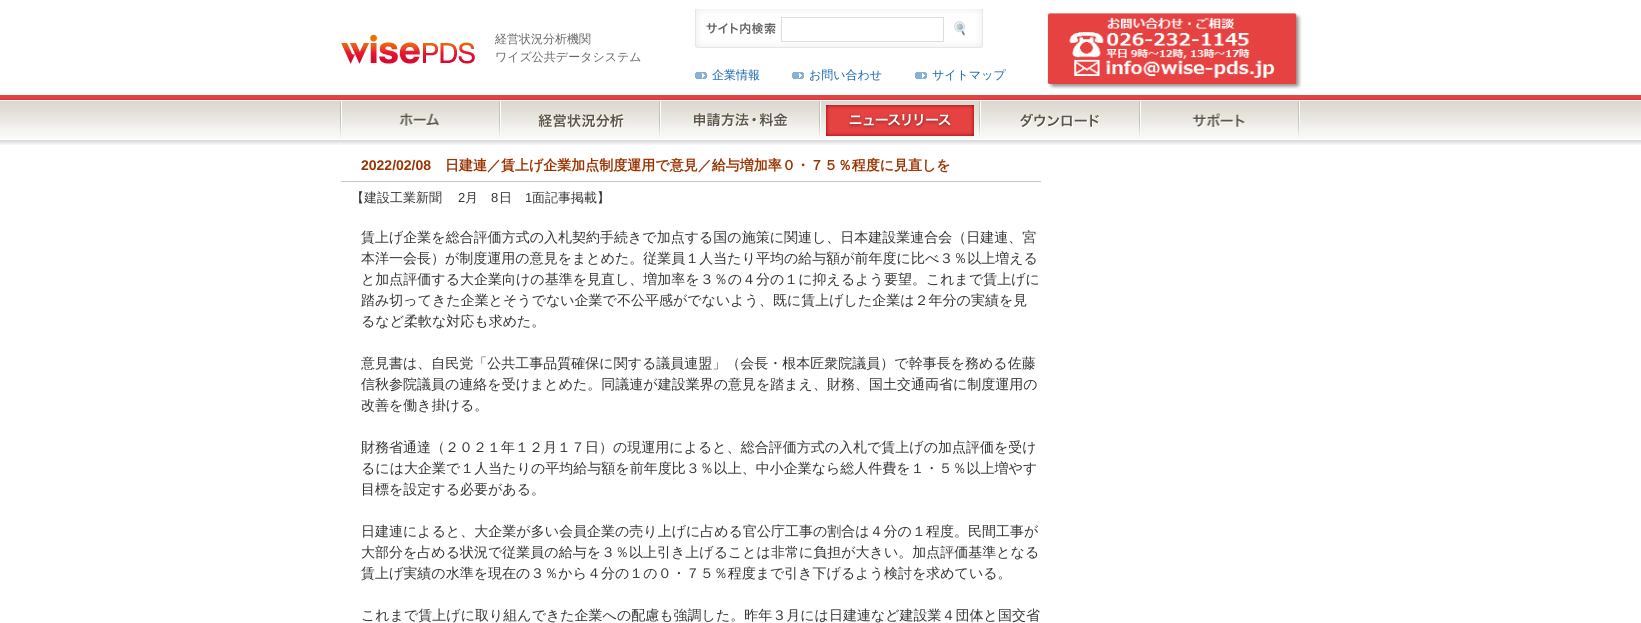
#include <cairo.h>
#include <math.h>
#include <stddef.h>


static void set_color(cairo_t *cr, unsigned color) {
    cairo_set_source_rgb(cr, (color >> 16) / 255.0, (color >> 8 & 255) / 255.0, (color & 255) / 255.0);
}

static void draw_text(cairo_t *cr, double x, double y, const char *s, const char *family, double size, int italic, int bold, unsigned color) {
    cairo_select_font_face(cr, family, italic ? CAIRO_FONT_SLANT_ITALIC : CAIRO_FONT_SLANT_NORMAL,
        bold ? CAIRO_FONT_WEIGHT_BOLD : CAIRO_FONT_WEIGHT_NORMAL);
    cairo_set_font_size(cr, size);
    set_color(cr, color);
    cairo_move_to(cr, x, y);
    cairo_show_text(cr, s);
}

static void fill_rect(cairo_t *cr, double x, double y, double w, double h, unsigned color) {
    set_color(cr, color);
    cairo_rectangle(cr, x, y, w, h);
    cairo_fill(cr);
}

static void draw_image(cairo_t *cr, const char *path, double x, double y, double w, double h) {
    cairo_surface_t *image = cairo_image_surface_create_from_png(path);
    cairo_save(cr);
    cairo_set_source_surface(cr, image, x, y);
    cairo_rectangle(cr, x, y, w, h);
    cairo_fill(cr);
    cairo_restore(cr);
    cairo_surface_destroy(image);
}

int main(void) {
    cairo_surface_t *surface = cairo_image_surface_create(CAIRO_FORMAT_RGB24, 1641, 623);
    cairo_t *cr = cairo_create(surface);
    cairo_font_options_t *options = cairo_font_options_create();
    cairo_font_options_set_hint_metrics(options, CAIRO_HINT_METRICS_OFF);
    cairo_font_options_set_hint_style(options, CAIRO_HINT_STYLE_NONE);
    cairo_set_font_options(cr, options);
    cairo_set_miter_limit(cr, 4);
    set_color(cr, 0xFFFFFF);
    cairo_paint(cr);
    draw_image(cr, "assets/img1.png", 0, 95, 1641, 44);
    draw_image(cr, "assets/img2.png", 341, 34, 134, 30);
    draw_text(cr, 495, 43, "経営状況分析機関", "WenQuanYi Zen Hei Medium", 12, 0, 0, 0x666666);
    draw_text(cr, 495, 61, "ワイズ公共データシステム", "WenQuanYi Zen Hei Medium", 12, 0, 0, 0x666666);
    draw_image(cr, "assets/img3.png", 695, 9, 288, 39);
    draw_image(cr, "assets/img4.png", 706, 22, 70, 12);
    cairo_rectangle(cr, 781.5, 17.5, 162, 24);
    set_color(cr, 0xD8DEE2);
    cairo_set_line_width(cr, 1);
    cairo_stroke(cr);
    draw_image(cr, "assets/img5.png", 954, 21, 11, 15);
    draw_image(cr, "assets/img6.png", 1047, 13, 255, 76);
    draw_image(cr, "assets/img7.png", 695, 72, 12, 7);
    draw_text(cr, 712, 79, "企業情報", "WenQuanYi Zen Hei Medium", 12, 0, 0, 0x1264AE);
    draw_image(cr, "assets/img7.png", 792, 72, 12, 7);
    draw_text(cr, 809, 79, "お問い合わせ", "WenQuanYi Zen Hei Medium", 12, 0, 0, 0x1264AE);
    draw_image(cr, "assets/img7.png", 915, 72, 12, 7);
    draw_text(cr, 932, 79, "サイトマップ", "WenQuanYi Zen Hei Medium", 12, 0, 0, 0x1264AE);
    draw_image(cr, "assets/img8.png", 340, 101, 160, 37);
    draw_image(cr, "assets/img9.png", 500, 101, 160, 37);
    draw_image(cr, "assets/img10.png", 660, 101, 160, 37);
    draw_image(cr, "assets/img11.png", 820, 101, 160, 37);
    draw_image(cr, "assets/img12.png", 980, 101, 160, 37);
    draw_image(cr, "assets/img13.png", 1140, 101, 160, 37);
    draw_image(cr, "assets/img14.png", 0, 140, 1641, 5);
    fill_rect(cr, 341, 181, 700, 1, 0xBDC6D9);
    draw_text(cr, 361, 170, "2022/02/08", "Liberation Sans", 14, 0, 1, 0x993300);
    draw_text(cr, 445, 170, "日建連／賃上げ企業加点制度運用で意見／給与増加率０・７５％程度に見直しを", "WenQuanYi Zen Hei", 14, 0, 1, 0x993300);
    draw_text(cr, 351, 202, "【建設工業新聞", "WenQuanYi Zen Hei Medium", 13, 0, 0, 0x333333);
    draw_text(cr, 458, 202, "2", "Liberation Sans", 13, 0, 0, 0x333333);
    draw_text(cr, 465, 202, "月", "WenQuanYi Zen Hei Medium", 13, 0, 0, 0x333333);
    draw_text(cr, 491, 202, "8", "Liberation Sans", 13, 0, 0, 0x333333);
    draw_text(cr, 499, 202, "日", "WenQuanYi Zen Hei Medium", 13, 0, 0, 0x333333);
    draw_text(cr, 525, 202, "1", "Liberation Sans", 13, 0, 0, 0x333333);
    draw_text(cr, 532, 202, "面記事掲載】", "WenQuanYi Zen Hei Medium", 13, 0, 0, 0x333333);
    draw_text(cr, 361, 242, "賃上げ企業を総合評価方式の入札契約手続きで加点する国の施策に関連し、日本建設業連合会（日建連、宮", "WenQuanYi Zen Hei Medium", 14, 0, 0, 0x333333);
    draw_text(cr, 361, 263, "本洋一会長）が制度運用の意見をまとめた。従業員１人当たり平均の給与額が前年度に比べ３％以上増える", "WenQuanYi Zen Hei Medium", 14, 0, 0, 0x333333);
    draw_text(cr, 361, 284, "と加点評価する大企業向けの基準を見直し、増加率を３％の４分の１に抑えるよう要望。これまで賃上げに", "WenQuanYi Zen Hei Medium", 14, 0, 0, 0x333333);
    draw_text(cr, 361, 305, "踏み切ってきた企業とそうでない企業で不公平感がでないよう、既に賃上げした企業は２年分の実績を見", "WenQuanYi Zen Hei Medium", 14, 0, 0, 0x333333);
    draw_text(cr, 361, 326, "るなど柔軟な対応も求めた。", "WenQuanYi Zen Hei Medium", 14, 0, 0, 0x333333);
    draw_text(cr, 361, 368, "意見書は、自民党「公共工事品質確保に関する議員連盟」（会長・根本匠衆院議員）で幹事長を務める佐藤", "WenQuanYi Zen Hei Medium", 14, 0, 0, 0x333333);
    draw_text(cr, 361, 389, "信秋参院議員の連絡を受けまとめた。同議連が建設業界の意見を踏まえ、財務、国土交通両省に制度運用の", "WenQuanYi Zen Hei Medium", 14, 0, 0, 0x333333);
    draw_text(cr, 361, 410, "改善を働き掛ける。", "WenQuanYi Zen Hei Medium", 14, 0, 0, 0x333333);
    draw_text(cr, 361, 452, "財務省通達（２０２１年１２月１７日）の現運用によると、総合評価方式の入札で賃上げの加点評価を受け", "WenQuanYi Zen Hei Medium", 14, 0, 0, 0x333333);
    draw_text(cr, 361, 473, "るには大企業で１人当たりの平均給与額を前年度比３％以上、中小企業なら総人件費を１・５％以上増やす", "WenQuanYi Zen Hei Medium", 14, 0, 0, 0x333333);
    draw_text(cr, 361, 494, "目標を設定する必要がある。", "WenQuanYi Zen Hei Medium", 14, 0, 0, 0x333333);
    draw_text(cr, 361, 536, "日建連によると、大企業が多い会員企業の売り上げに占める官公庁工事の割合は４分の１程度。民間工事が", "WenQuanYi Zen Hei Medium", 14, 0, 0, 0x333333);
    draw_text(cr, 361, 557, "大部分を占める状況で従業員の給与を３％以上引き上げることは非常に負担が大きい。加点評価基準となる", "WenQuanYi Zen Hei Medium", 14, 0, 0, 0x333333);
    draw_text(cr, 361, 578, "賃上げ実績の水準を現在の３％から４分の１の０・７５％程度まで引き下げるよう検討を求めている。", "WenQuanYi Zen Hei Medium", 14, 0, 0, 0x333333);
    draw_text(cr, 361, 620, "これまで賃上げに取り組んできた企業への配慮も強調した。昨年３月には日建連など建設業４団体と国交省", "WenQuanYi Zen Hei Medium", 14, 0, 0, 0x333333);
    cairo_surface_write_to_png(surface, "output.png");
    cairo_font_options_destroy(options);
    cairo_destroy(cr);
    cairo_surface_destroy(surface);
    return 0;
}
